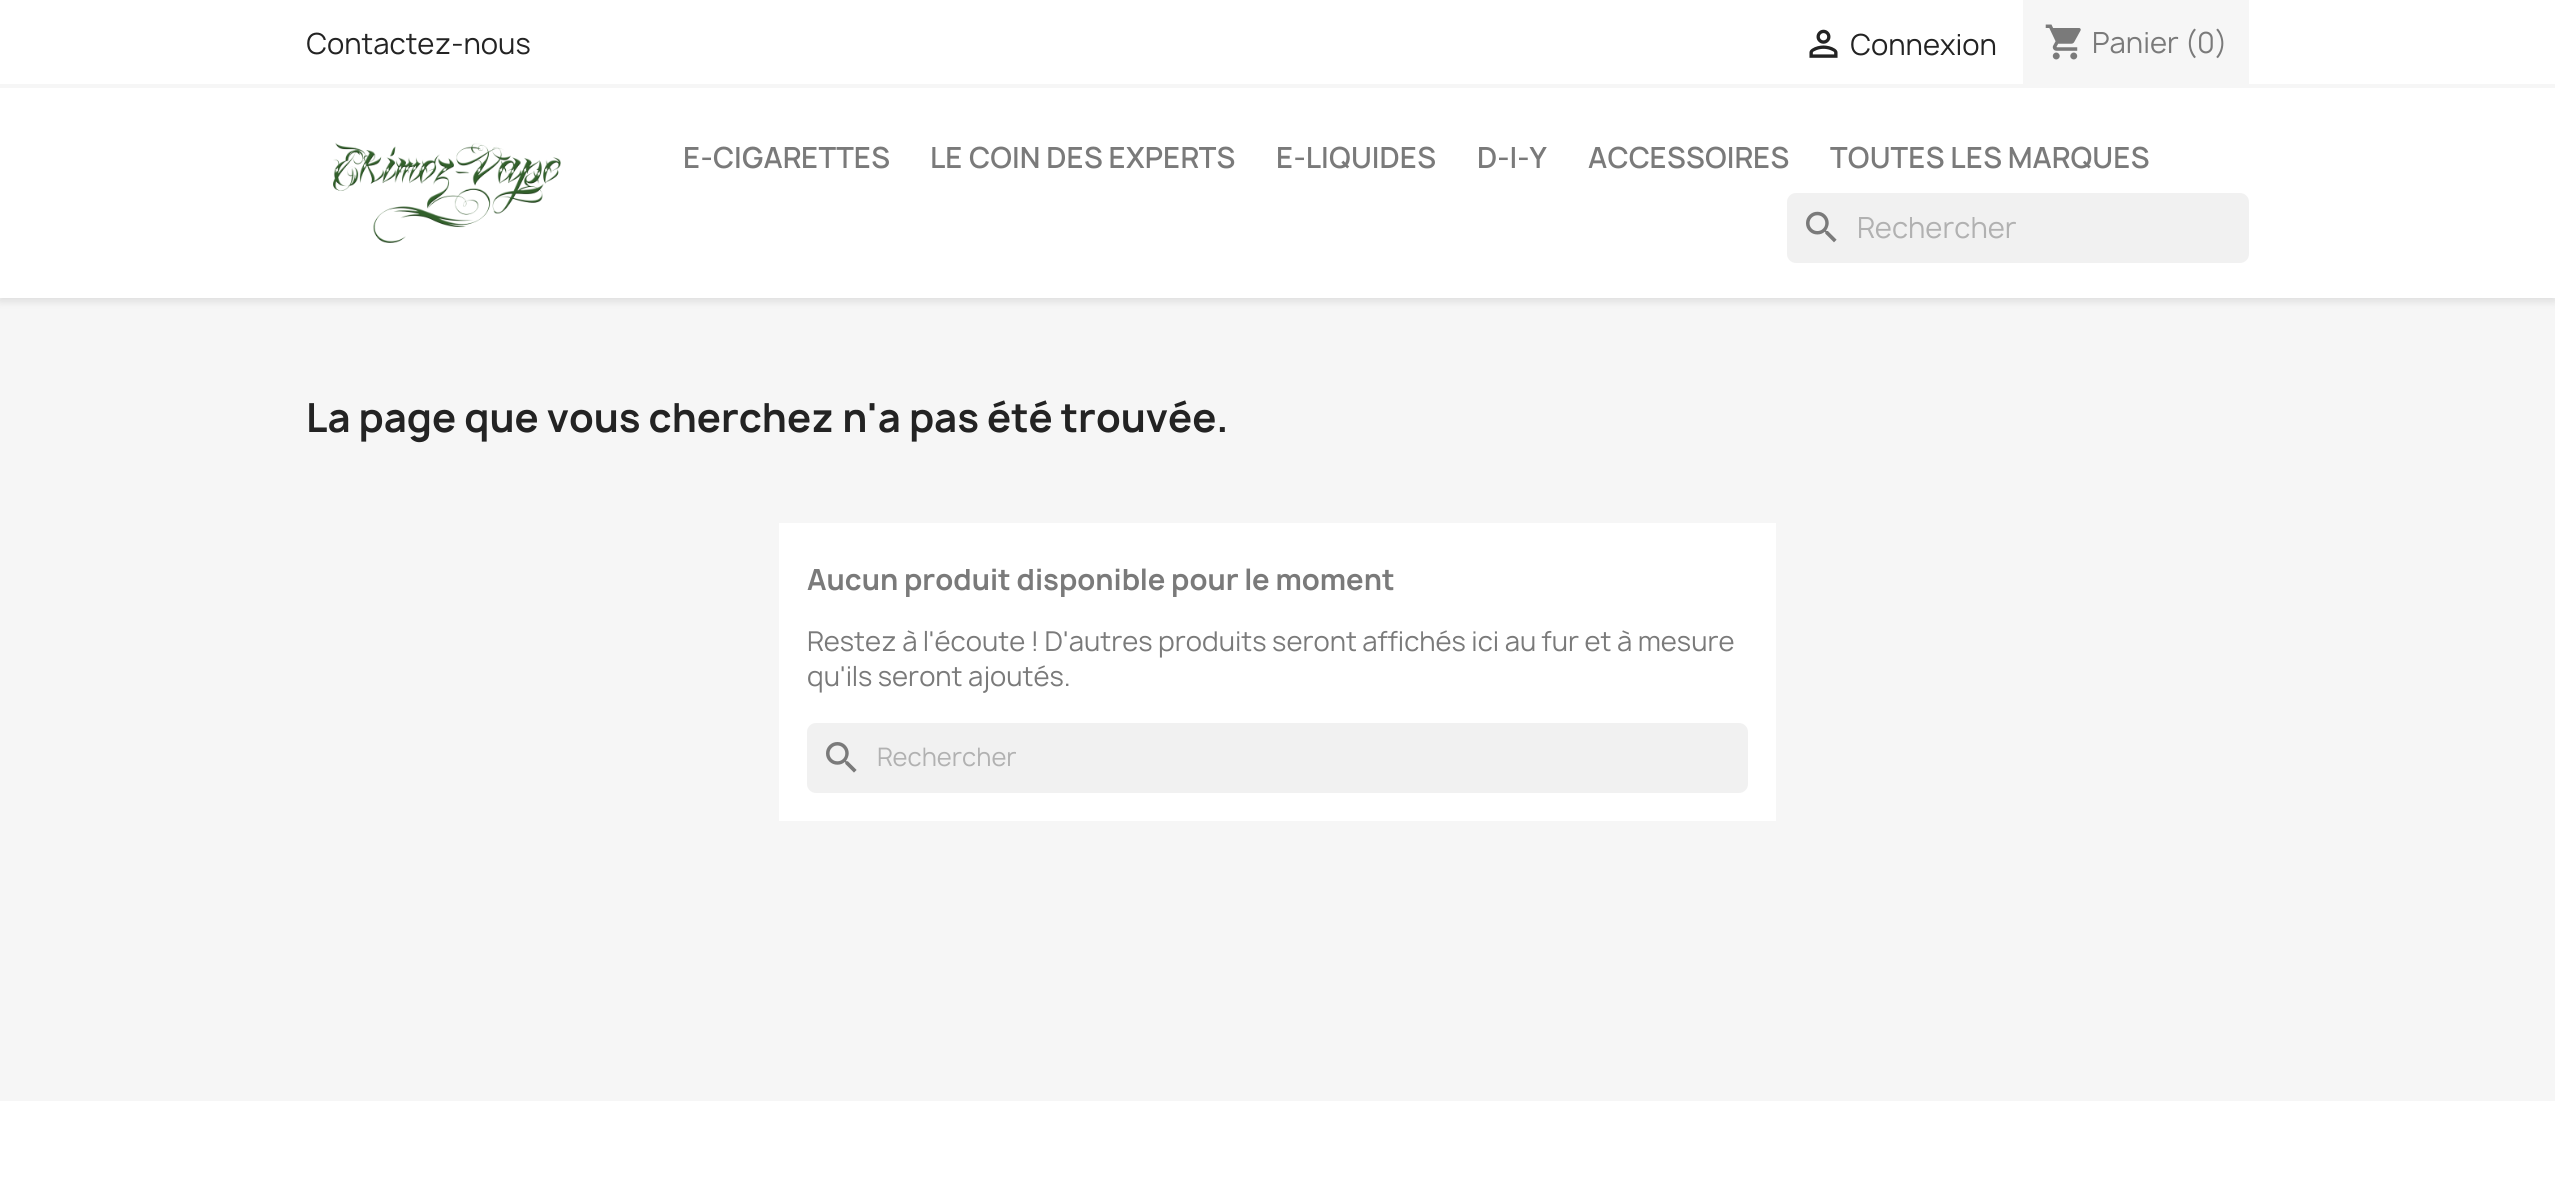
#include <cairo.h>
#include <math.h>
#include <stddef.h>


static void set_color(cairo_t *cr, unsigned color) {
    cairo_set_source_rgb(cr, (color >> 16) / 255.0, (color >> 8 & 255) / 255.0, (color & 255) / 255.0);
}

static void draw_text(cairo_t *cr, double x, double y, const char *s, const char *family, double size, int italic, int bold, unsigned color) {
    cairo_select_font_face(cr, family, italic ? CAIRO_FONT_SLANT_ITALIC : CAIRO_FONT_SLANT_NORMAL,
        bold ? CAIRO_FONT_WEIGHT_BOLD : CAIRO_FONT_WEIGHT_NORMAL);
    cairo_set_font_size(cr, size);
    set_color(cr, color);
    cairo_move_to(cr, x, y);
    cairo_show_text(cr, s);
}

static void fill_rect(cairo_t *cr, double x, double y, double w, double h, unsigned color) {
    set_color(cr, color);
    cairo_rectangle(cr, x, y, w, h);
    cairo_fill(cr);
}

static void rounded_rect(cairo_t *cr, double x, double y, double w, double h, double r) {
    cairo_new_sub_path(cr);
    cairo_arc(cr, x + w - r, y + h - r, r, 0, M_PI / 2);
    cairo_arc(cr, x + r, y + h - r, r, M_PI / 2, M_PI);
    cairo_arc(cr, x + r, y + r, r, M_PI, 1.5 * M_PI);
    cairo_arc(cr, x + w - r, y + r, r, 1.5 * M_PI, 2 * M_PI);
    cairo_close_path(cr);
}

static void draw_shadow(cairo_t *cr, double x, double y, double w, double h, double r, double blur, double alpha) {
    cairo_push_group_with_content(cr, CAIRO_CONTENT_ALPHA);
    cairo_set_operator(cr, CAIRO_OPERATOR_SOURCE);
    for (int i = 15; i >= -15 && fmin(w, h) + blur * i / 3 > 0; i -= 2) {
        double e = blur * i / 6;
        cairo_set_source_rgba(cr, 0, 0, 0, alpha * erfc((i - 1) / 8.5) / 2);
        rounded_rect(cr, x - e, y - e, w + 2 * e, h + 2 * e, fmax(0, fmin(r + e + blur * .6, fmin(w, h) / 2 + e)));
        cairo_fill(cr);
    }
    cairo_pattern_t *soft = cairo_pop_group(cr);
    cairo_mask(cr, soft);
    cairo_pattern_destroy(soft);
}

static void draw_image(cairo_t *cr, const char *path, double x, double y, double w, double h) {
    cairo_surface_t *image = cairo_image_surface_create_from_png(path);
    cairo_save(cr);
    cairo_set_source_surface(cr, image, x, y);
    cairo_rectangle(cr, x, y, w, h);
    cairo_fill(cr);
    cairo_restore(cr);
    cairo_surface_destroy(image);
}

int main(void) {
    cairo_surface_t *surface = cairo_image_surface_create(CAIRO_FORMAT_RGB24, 2555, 1200);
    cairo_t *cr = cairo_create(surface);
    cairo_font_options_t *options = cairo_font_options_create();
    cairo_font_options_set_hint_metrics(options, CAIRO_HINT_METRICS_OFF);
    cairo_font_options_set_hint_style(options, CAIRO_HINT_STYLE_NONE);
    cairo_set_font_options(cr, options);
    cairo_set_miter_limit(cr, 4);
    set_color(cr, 0xFFFFFF);
    cairo_paint(cr);
    fill_rect(cr, 0, 298, 2555, 803, 0xF6F6F6);
    set_color(cr, 0x000000);
    draw_shadow(cr, 0, 4, 2555, 297, 0, 4.5, 0.11);
    fill_rect(cr, 0, 0, 2555, 298, 0xFFFFFF);
    fill_rect(cr, 0, 84, 2555, 4, 0xF6F6F6);
    draw_text(cr, 306, 54, "Contactez-nous", "Manrope", 28, 0, 0, 0x232323);
    draw_image(cr, "assets/img1.png", 1809, 29, 29, 29);
    draw_text(cr, 1850, 55, "Connexion", "Manrope", 28, 0, 0, 0x232323);
    fill_rect(cr, 2023, 0, 226, 84, 0xF6F6F6);
    draw_image(cr, "assets/img2.png", 2045, 24, 36, 36);
    draw_text(cr, 2092, 53, "Panier (0)", "Manrope", 28, 0, 0, 0x7A7A7A);
    draw_image(cr, "assets/img3.png", 333, 142, 228, 101);
    draw_text(cr, 683, 168, "E-CIGARETTES", "Manrope SemiBold", 28, 0, 0, 0x7A7A7A);
    draw_text(cr, 930, 168, "LE COIN DES EXPERTS", "Manrope SemiBold", 28, 0, 0, 0x7A7A7A);
    draw_text(cr, 1276, 168, "E-LIQUIDES", "Manrope SemiBold", 28, 0, 0, 0x7A7A7A);
    draw_text(cr, 1477, 168, "D-I-Y", "Manrope SemiBold", 28, 0, 0, 0x7A7A7A);
    draw_text(cr, 1588, 168, "ACCESSOIRES", "Manrope SemiBold", 28, 0, 0, 0x7A7A7A);
    draw_text(cr, 1830, 168, "TOUTES LES MARQUES", "Manrope SemiBold", 28, 0, 0, 0x7A7A7A);
    set_color(cr, 0xF1F1F1);
    rounded_rect(cr, 1787, 193, 462, 70, 9);
    cairo_fill(cr);
    draw_image(cr, "assets/img4.png", 1806, 211, 31, 32);
    draw_text(cr, 1857, 238, "Rechercher", "Manrope", 28, 0, 0, 0xB1B1B1);
    draw_text(cr, 306, 432, "La page que vous cherchez n'a pas été trouvée.", "Manrope", 38.5, 0, 1, 0x232323);
    fill_rect(cr, 779, 523, 997, 298, 0xFFFFFF);
    draw_text(cr, 807, 590, "Aucun produit disponible pour le moment", "Manrope", 28, 0, 1, 0x7A7A7A);
    draw_text(cr, 807, 651, "Restez à l'écoute ! D'autres produits seront affichés ici au fur et à mesure", "Manrope", 26.25, 0, 0, 0x7A7A7A);
    draw_text(cr, 807, 686, "qu'ils seront ajoutés.", "Manrope", 26.25, 0, 0, 0x7A7A7A);
    set_color(cr, 0xF1F1F1);
    rounded_rect(cr, 807, 723, 941, 70, 9);
    cairo_fill(cr);
    draw_image(cr, "assets/img5.png", 826, 742, 31, 31);
    draw_text(cr, 877, 766, "Rechercher", "Manrope", 24.5, 0, 0, 0xB1B1B1);
    cairo_surface_write_to_png(surface, "output.png");
    cairo_font_options_destroy(options);
    cairo_destroy(cr);
    cairo_surface_destroy(surface);
    return 0;
}
